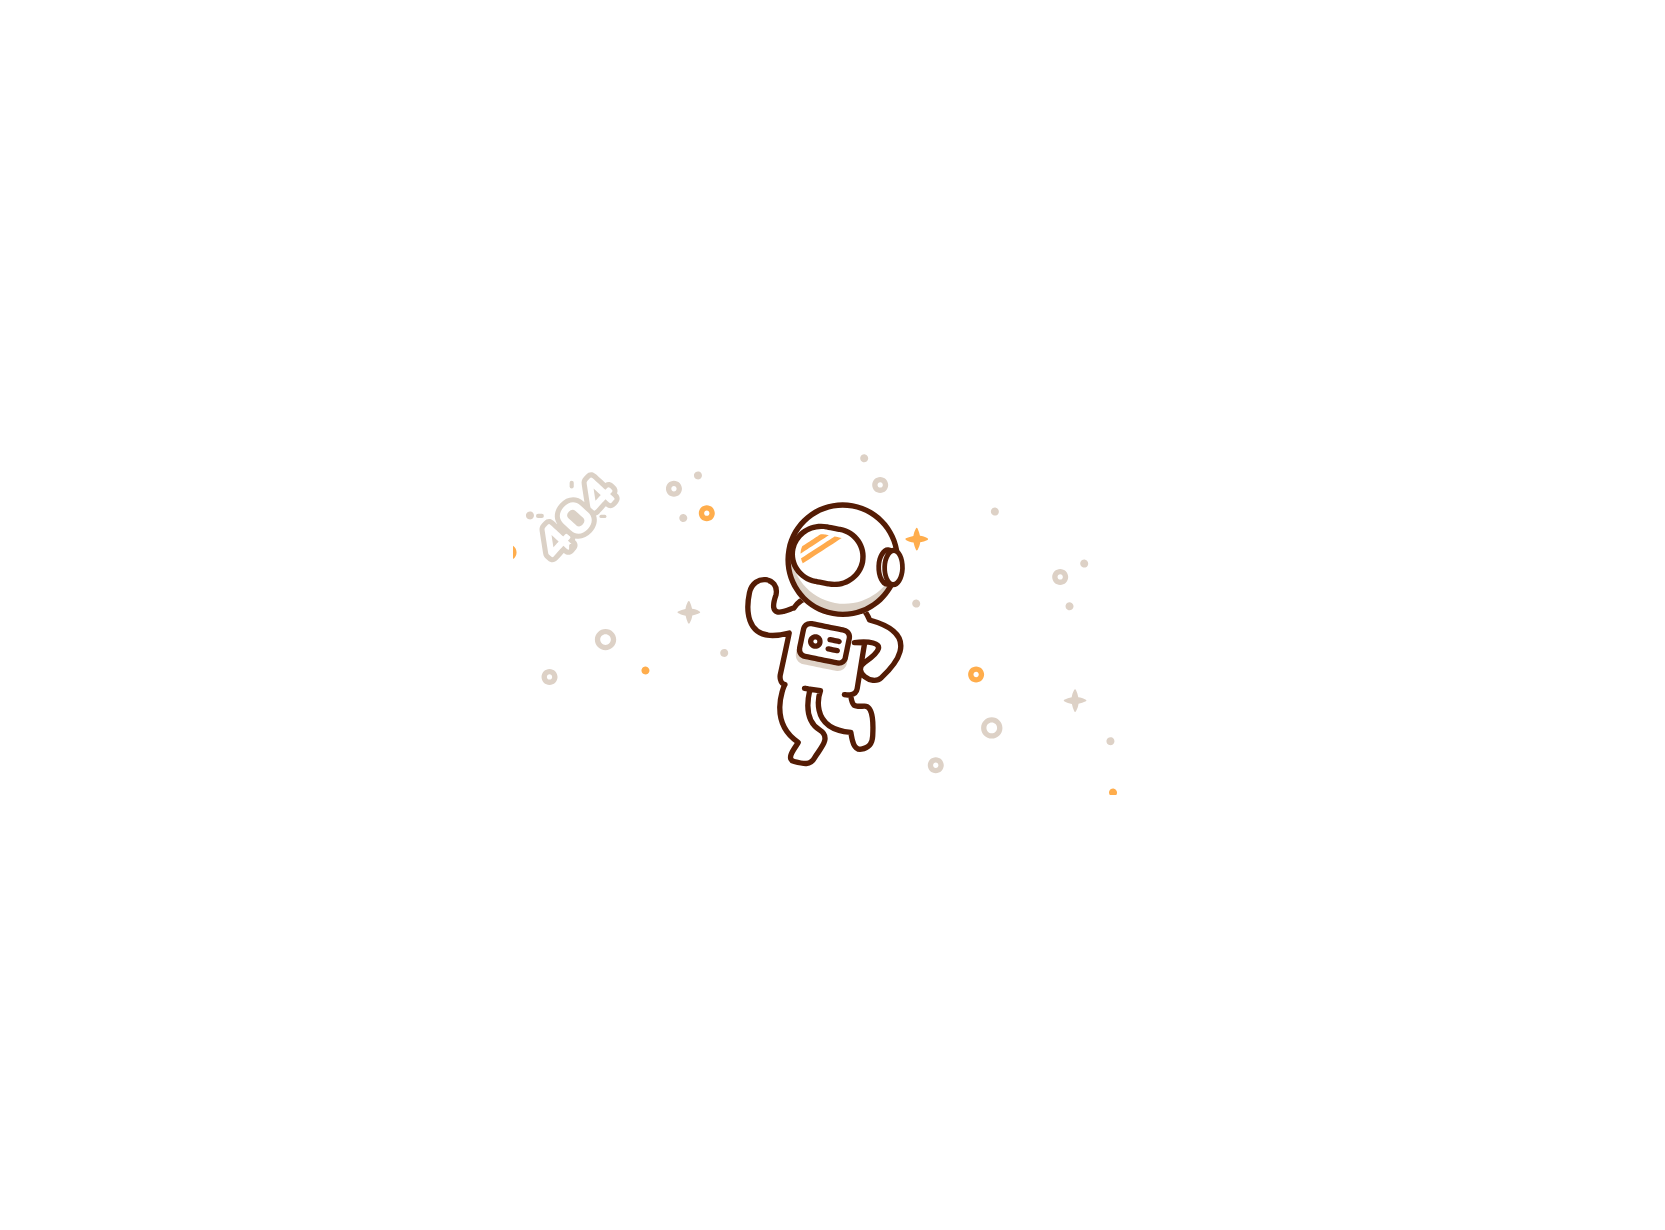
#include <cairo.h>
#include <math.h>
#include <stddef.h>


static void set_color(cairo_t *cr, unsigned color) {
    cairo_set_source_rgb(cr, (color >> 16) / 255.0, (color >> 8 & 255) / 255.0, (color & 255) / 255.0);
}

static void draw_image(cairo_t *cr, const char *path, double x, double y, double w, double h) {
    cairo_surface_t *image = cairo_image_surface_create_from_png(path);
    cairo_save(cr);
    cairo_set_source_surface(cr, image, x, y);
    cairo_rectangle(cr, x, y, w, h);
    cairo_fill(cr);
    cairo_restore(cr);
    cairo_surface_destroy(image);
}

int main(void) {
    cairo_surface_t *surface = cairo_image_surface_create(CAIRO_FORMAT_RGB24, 1665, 1230);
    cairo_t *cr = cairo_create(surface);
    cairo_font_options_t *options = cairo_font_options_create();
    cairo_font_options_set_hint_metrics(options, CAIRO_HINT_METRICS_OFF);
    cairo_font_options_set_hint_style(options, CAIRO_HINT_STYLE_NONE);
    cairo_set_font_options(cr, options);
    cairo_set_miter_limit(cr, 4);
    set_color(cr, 0xFFFFFF);
    cairo_paint(cr);
    draw_image(cr, "assets/img1.png", 513, 454, 604, 341);
    cairo_surface_write_to_png(surface, "output.png");
    cairo_font_options_destroy(options);
    cairo_destroy(cr);
    cairo_surface_destroy(surface);
    return 0;
}
